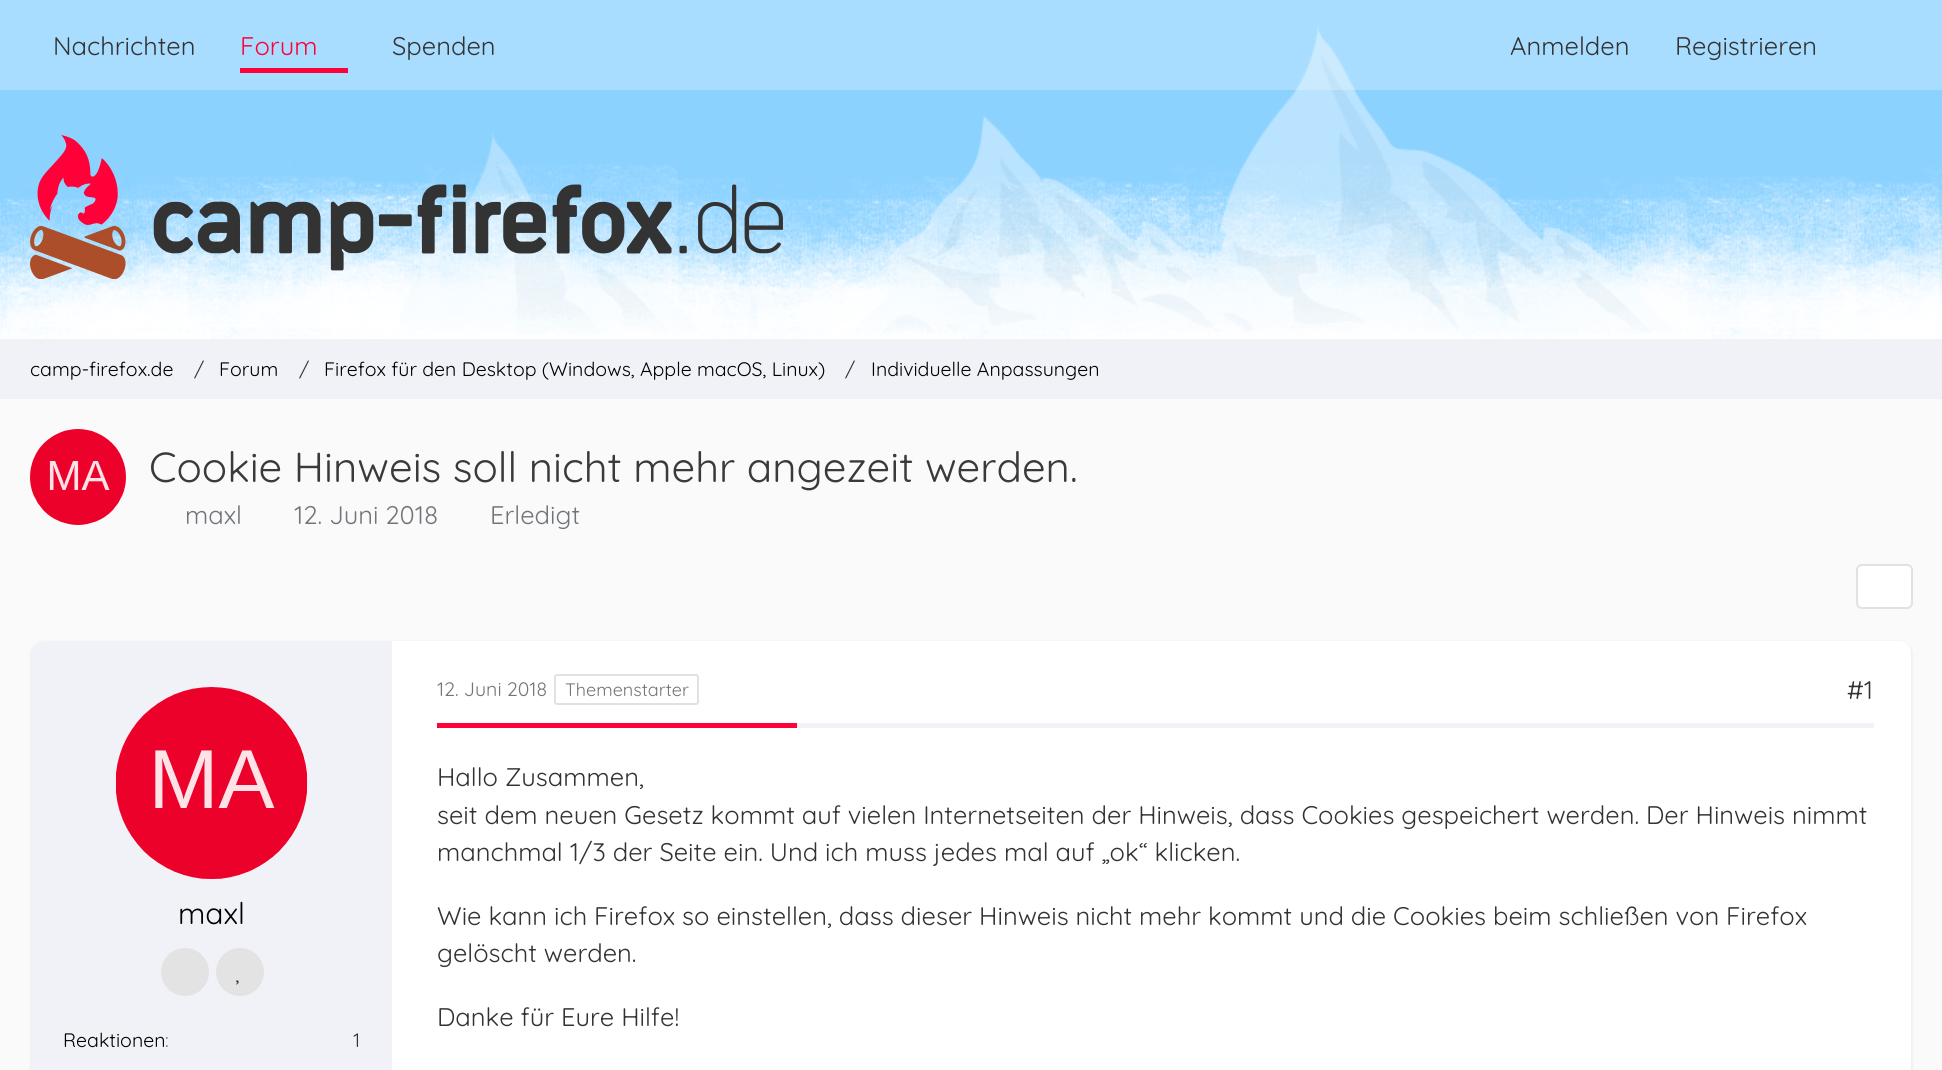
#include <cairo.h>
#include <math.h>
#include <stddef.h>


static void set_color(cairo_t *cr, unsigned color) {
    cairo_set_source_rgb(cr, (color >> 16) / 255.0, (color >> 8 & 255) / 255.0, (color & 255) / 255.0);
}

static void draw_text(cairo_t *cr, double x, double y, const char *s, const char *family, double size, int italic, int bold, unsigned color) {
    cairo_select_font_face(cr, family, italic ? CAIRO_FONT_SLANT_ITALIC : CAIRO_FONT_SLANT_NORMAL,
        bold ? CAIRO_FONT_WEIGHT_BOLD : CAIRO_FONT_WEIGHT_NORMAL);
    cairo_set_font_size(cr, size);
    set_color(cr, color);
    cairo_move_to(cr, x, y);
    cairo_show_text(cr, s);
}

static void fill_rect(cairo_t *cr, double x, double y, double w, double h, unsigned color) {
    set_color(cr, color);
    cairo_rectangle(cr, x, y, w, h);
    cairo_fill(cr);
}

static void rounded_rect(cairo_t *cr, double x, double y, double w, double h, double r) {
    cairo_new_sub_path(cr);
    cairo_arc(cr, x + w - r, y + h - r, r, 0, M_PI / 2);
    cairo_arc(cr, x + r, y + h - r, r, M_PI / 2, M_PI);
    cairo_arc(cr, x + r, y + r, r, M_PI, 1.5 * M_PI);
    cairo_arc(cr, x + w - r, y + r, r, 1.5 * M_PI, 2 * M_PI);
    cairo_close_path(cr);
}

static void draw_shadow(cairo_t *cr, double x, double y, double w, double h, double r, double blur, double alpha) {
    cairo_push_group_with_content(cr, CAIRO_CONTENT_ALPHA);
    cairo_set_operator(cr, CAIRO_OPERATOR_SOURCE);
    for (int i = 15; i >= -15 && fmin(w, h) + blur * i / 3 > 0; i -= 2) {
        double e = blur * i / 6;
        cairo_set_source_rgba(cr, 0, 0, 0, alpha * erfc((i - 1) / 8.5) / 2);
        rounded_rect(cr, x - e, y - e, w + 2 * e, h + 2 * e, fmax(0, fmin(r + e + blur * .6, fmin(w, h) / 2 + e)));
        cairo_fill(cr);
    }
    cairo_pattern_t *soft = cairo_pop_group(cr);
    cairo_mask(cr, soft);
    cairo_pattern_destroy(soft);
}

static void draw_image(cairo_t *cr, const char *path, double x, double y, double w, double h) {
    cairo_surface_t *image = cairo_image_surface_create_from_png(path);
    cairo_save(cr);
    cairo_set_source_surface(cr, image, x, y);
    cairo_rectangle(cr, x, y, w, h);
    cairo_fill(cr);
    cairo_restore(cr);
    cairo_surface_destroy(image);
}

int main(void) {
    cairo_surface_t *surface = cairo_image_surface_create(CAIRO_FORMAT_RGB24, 1942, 1070);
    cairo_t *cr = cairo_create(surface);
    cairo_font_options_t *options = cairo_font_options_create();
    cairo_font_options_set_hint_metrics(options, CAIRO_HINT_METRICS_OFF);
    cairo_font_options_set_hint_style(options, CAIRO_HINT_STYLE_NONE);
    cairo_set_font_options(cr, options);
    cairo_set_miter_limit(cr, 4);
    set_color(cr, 0xFAFAFA);
    cairo_paint(cr);
    fill_rect(cr, 0, 0, 1942, 339, 0x8CD2FF);
    draw_image(cr, "assets/img1.png", 0, 164, 1942, 175);
    draw_image(cr, "assets/img2.png", 256, 25, 1452, 311);
    draw_image(cr, "assets/img3.png", 30, 135, 753, 144);
    cairo_set_source_rgba(cr, 1, 1, 1, 0.25);
    cairo_rectangle(cr, 0, 0, 1942, 90);
    cairo_fill(cr);
    draw_text(cr, 53, 55, "Nachrichten", "Quicksand Light", 25.5, 0, 0, 0x333333);
    draw_text(cr, 240, 55, "Forum", "Quicksand Light", 25.5, 0, 0, 0xFF0039);
    fill_rect(cr, 240, 68, 108, 5, 0xFF0039);
    draw_text(cr, 392, 55, "Spenden", "Quicksand Light", 25.5, 0, 0, 0x333333);
    draw_text(cr, 1510, 55, "Anmelden", "Quicksand Light", 25.5, 0, 0, 0x333333);
    draw_text(cr, 1675, 55, "Registrieren", "Quicksand Light", 25.5, 0, 0, 0x333333);
    fill_rect(cr, 0, 339, 1942, 60, 0xF0F2F7);
    draw_text(cr, 30, 376, "camp-firefox.de", "Quicksand Light", 19.5, 0, 0, 0x000000);
    draw_text(cr, 194, 376, "/", "Quicksand Light", 19.5, 0, 0, 0x333333);
    draw_text(cr, 219, 376, "Forum", "Quicksand Light", 19.5, 0, 0, 0x000000);
    draw_text(cr, 299, 376, "/", "Quicksand Light", 19.5, 0, 0, 0x333333);
    draw_text(cr, 324, 376, "Firefox für den Desktop (Windows, Apple macOS, Linux)", "Quicksand Light", 19.5, 0, 0, 0x000000);
    draw_text(cr, 845, 376, "/", "Quicksand Light", 19.5, 0, 0, 0x333333);
    draw_text(cr, 871, 376, "Individuelle Anpassungen", "Quicksand Light", 19.5, 0, 0, 0x000000);
    set_color(cr, 0xFFFFFF);
    cairo_new_path(cr);
    cairo_arc(cr, 78, 477, 48, 0, 2 * M_PI);
    cairo_fill(cr);
    draw_image(cr, "assets/img4.png", 30, 429, 96, 96);
    draw_text(cr, 149, 482, "Cookie Hinweis soll nicht mehr angezeit werden.", "Quicksand Light", 42, 0, 0, 0x3A3A3D);
    draw_text(cr, 185, 524, "maxl", "Quicksand Light", 25.5, 0, 0, 0x71757A);
    draw_text(cr, 294, 524, "12. Juni 2018", "Quicksand Light", 25.5, 0, 0, 0x71757A);
    draw_text(cr, 490, 524, "Erledigt", "Quicksand Light", 25.5, 0, 0, 0x71757A);
    set_color(cr, 0xFFFFFF);
    rounded_rect(cr, 1857, 565, 55, 43, 5);
    cairo_fill_preserve(cr);
    set_color(cr, 0xE1E1E1);
    cairo_stroke(cr);
    set_color(cr, 0x000000);
    draw_shadow(cr, 30, 641, 1883, 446, 14, 1, 0.04);
    set_color(cr, 0xFFFFFF);
    rounded_rect(cr, 32, 641, 1879, 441, 12);
    cairo_fill(cr);
    set_color(cr, 0xF0F2F7);
    cairo_new_path(cr);
    cairo_move_to(cr, 44, 641);
    cairo_line_to(cr, 392, 641);
    cairo_line_to(cr, 392, 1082);
    cairo_line_to(cr, 44, 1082);
    cairo_curve_to(cr, 37.5, 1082, 32, 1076.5, 32, 1070);
    cairo_line_to(cr, 32, 653);
    cairo_curve_to(cr, 32, 646.5, 37.5, 641, 44, 641);
    cairo_close_path(cr);
    cairo_fill(cr);
    set_color(cr, 0xFFFFFF);
    cairo_arc(cr, 212, 783, 96, 0, 2 * M_PI);
    cairo_fill(cr);
    draw_image(cr, "assets/img5.png", 116, 687, 192, 192);
    draw_text(cr, 178, 924, "maxl", "Quicksand Light", 30, 0, 0, 0x000000);
    set_color(cr, 0xE3E3E3);
    cairo_new_path(cr);
    cairo_arc(cr, 185, 972, 24, 0, 2 * M_PI);
    cairo_fill(cr);
    cairo_arc(cr, 240, 972, 24, 0, 2 * M_PI);
    cairo_fill(cr);
    draw_image(cr, "assets/img6.png", 236, 980, 3, 5);
    draw_text(cr, 63, 1047, "Reaktionen", "Quicksand Light", 19.5, 0, 0, 0x000000);
    draw_text(cr, 165, 1047, ":", "Quicksand Light", 19.5, 0, 0, 0x696D72);
    draw_text(cr, 353, 1047, "1", "Quicksand Light", 19.5, 0, 0, 0x333333);
    draw_text(cr, 437, 696, "12. Juni 2018", "Quicksand Light", 19.5, 0, 0, 0x71757A);
    rounded_rect(cr, 555, 675, 143, 29, 2);
    set_color(cr, 0xE1E1E1);
    cairo_stroke(cr);
    draw_text(cr, 565, 696, "Themenstarter", "Quicksand Light", 18, 0, 0, 0x71757A);
    draw_text(cr, 1847, 699, "#1", "Quicksand Light", 25.5, 0, 0, 0x333333);
    fill_rect(cr, 437, 723, 360, 5, 0xFF0039);
    fill_rect(cr, 797, 723, 1077, 5, 0xF0F2F7);
    draw_text(cr, 437, 786, "Hallo Zusammen,", "Quicksand Light", 25.5, 0, 0, 0x333333);
    draw_text(cr, 437, 824, "seit dem neuen Gesetz kommt auf vielen Internetseiten der Hinweis, dass Cookies gespeichert werden. Der Hinweis nimmt", "Quicksand Light", 25.5, 0, 0, 0x333333);
    draw_text(cr, 437, 861, "manchmal 1/3 der Seite ein. Und ich muss jedes mal auf „ok“ klicken.", "Quicksand Light", 25.5, 0, 0, 0x333333);
    draw_text(cr, 437, 925, "Wie kann ich Firefox so einstellen, dass dieser Hinweis nicht mehr kommt und die Cookies beim schließen von Firefox", "Quicksand Light", 25.5, 0, 0, 0x333333);
    draw_text(cr, 437, 962, "gelöscht werden.", "Quicksand Light", 25.5, 0, 0, 0x333333);
    draw_text(cr, 437, 1026, "Danke für Eure Hilfe!", "Quicksand Light", 25.5, 0, 0, 0x333333);
    cairo_surface_write_to_png(surface, "output.png");
    cairo_font_options_destroy(options);
    cairo_destroy(cr);
    cairo_surface_destroy(surface);
    return 0;
}
